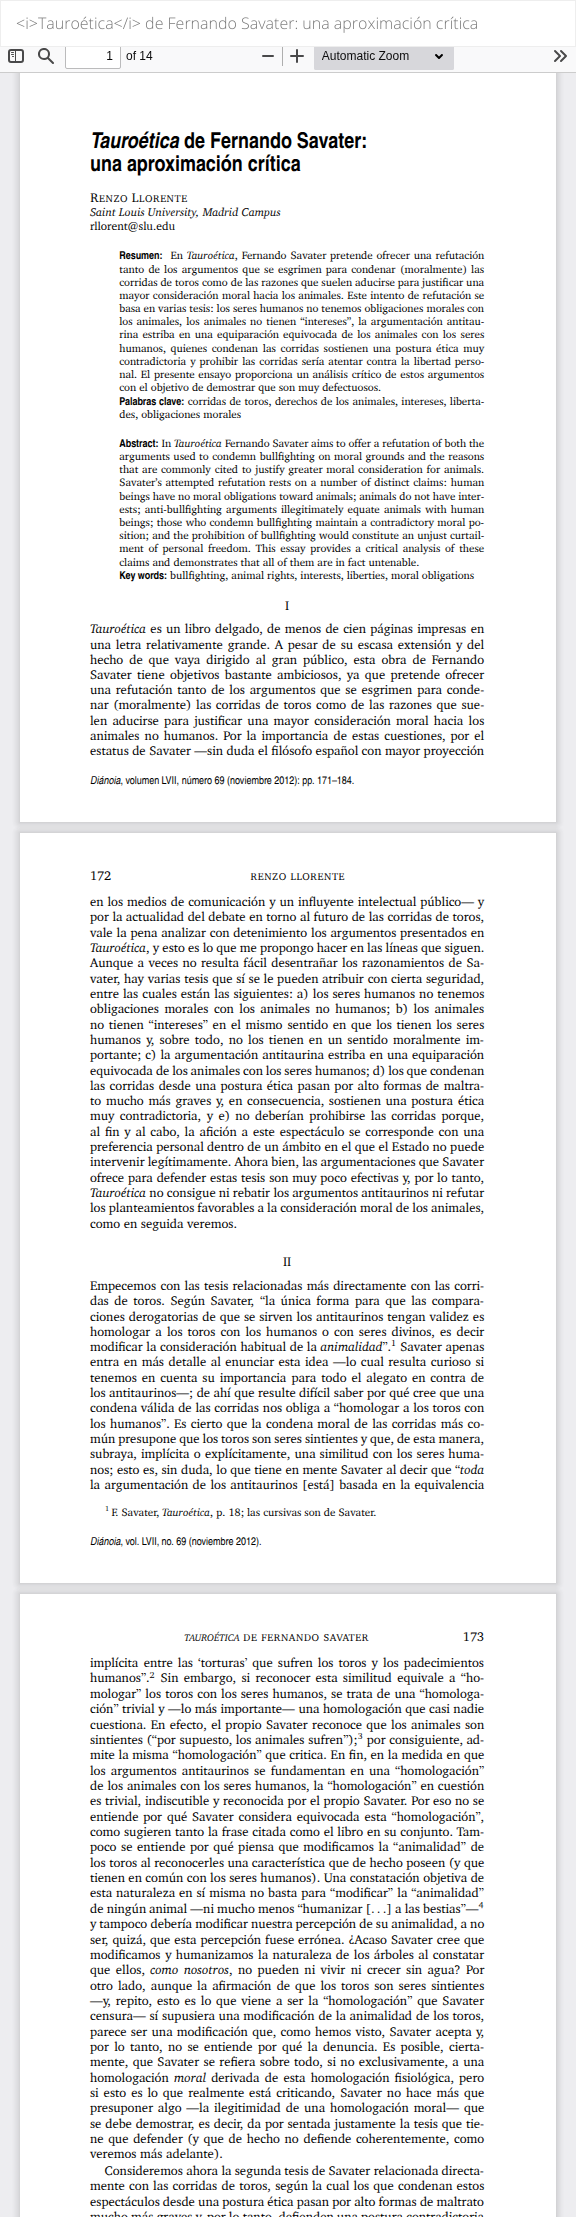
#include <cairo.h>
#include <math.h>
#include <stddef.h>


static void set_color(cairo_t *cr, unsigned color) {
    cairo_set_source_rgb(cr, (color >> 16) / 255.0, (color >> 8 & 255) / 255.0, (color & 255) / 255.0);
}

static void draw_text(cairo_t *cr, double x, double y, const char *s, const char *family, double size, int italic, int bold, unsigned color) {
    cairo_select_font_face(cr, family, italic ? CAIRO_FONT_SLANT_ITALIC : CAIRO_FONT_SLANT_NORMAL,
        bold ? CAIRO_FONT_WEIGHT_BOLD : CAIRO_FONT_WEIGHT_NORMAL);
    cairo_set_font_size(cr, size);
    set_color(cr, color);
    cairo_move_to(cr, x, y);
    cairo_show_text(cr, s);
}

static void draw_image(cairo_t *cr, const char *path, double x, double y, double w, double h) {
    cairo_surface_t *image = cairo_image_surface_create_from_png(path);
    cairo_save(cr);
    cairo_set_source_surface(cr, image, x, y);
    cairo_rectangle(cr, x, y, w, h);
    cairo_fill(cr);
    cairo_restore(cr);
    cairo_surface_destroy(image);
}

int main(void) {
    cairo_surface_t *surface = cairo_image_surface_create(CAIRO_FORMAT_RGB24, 576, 2217);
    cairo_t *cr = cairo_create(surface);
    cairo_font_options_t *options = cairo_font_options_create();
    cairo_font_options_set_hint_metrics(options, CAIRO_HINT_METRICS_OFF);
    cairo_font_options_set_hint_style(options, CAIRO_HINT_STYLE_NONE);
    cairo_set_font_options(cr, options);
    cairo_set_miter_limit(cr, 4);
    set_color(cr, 0xFFFFFF);
    cairo_paint(cr);
    cairo_rectangle(cr, 0.5, 0.5, 575, 46);
    set_color(cr, 0xEEEEEE);
    cairo_set_line_width(cr, 1);
    cairo_stroke(cr);
    draw_text(cr, 16, 29, "<i>Tauroética</i> de Fernando Savater: una aproximación crítica", "Open Sans Light", 16, 0, 0, 0x777777);
    draw_image(cr, "assets/img1.png", 0, 47, 576, 2170);
    cairo_surface_write_to_png(surface, "output.png");
    cairo_font_options_destroy(options);
    cairo_destroy(cr);
    cairo_surface_destroy(surface);
    return 0;
}
